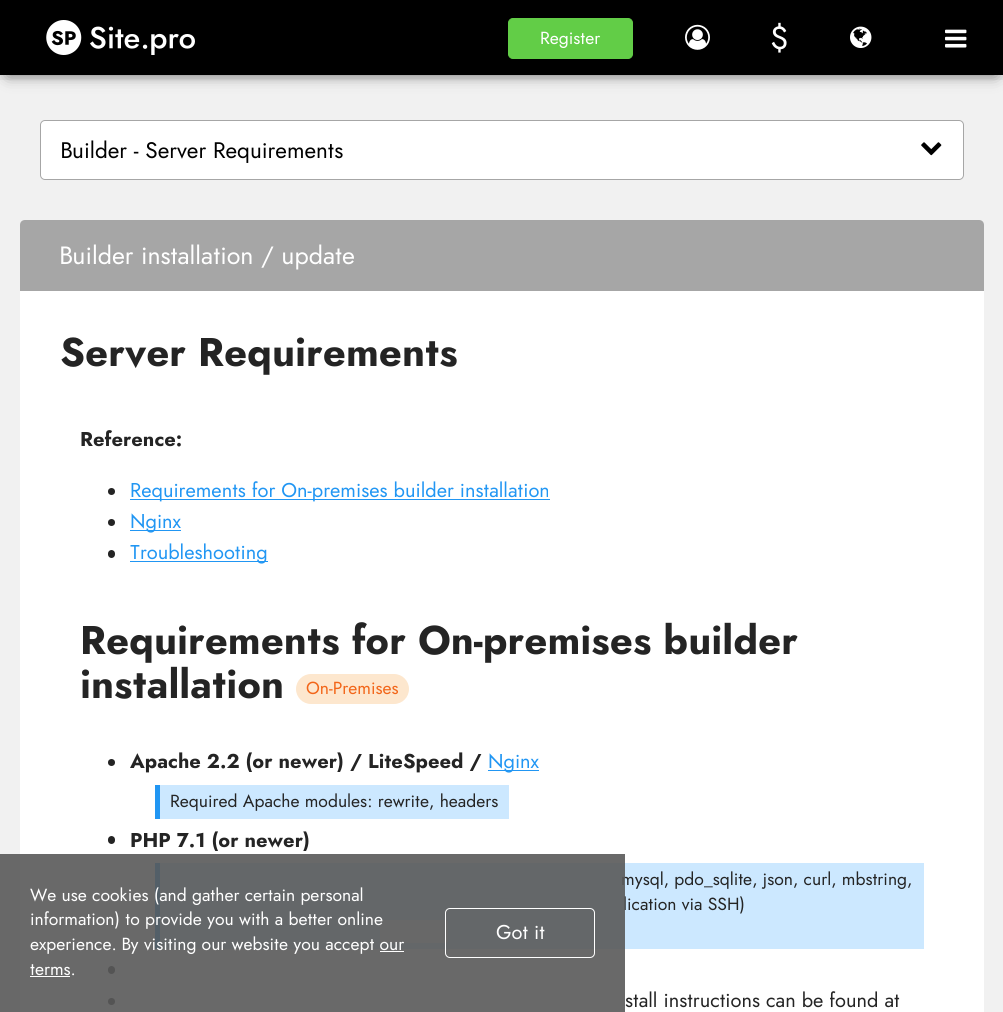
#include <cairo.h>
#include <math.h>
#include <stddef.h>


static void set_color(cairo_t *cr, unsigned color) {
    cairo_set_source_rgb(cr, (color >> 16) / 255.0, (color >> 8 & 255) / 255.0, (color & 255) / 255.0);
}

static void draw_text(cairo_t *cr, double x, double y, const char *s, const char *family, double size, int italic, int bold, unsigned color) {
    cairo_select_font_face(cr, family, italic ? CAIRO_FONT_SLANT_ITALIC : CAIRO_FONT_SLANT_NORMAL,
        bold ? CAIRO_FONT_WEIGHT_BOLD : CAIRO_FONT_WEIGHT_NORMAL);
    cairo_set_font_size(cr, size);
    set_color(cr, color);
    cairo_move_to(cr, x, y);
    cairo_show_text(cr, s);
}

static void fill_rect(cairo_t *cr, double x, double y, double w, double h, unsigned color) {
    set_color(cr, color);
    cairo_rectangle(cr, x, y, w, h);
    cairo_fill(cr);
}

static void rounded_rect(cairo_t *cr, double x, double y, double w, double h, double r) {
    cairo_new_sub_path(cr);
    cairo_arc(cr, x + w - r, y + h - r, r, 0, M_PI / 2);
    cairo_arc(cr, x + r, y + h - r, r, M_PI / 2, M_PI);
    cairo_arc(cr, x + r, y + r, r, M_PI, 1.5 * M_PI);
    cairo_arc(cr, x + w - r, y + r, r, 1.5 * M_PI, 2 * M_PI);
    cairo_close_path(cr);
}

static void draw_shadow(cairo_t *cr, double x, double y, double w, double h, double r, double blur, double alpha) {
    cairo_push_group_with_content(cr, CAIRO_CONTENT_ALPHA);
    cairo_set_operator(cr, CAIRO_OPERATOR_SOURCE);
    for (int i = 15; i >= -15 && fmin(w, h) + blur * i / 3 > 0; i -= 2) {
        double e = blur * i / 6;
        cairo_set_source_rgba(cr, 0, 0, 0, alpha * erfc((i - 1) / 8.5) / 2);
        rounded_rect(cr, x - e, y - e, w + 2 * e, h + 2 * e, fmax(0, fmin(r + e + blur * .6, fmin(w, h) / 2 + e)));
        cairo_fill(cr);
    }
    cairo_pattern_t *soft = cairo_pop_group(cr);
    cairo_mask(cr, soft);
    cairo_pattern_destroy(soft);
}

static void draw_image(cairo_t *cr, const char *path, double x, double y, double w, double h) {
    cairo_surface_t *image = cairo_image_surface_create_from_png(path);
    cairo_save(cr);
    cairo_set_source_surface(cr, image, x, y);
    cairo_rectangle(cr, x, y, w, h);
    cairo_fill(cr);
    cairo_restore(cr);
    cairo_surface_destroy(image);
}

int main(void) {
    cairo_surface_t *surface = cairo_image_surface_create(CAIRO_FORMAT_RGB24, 1003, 1012);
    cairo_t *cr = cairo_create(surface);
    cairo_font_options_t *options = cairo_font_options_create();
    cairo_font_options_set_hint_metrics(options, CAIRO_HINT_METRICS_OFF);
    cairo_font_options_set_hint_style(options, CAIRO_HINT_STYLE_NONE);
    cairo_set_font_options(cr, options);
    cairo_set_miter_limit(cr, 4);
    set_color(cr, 0xF1F1F1);
    cairo_paint(cr);
    fill_rect(cr, 0, 75, 1003, 5, 0xE6E6E6);
    set_color(cr, 0x000000);
    draw_shadow(cr, 8, 15, 988, 60, 0, 7.5, 0.5);
    fill_rect(cr, 0, 0, 1003, 75, 0x000000);
    draw_image(cr, "assets/img1.png", 46, 20, 149, 35);
    set_color(cr, 0x62CD47);
    rounded_rect(cr, 508.5, 18.5, 124, 40, 4.5);
    cairo_fill_preserve(cr);
    cairo_set_line_width(cr, 1);
    cairo_stroke(cr);
    draw_text(cr, 540, 44, "Register", "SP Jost", 17.5, 0, 0, 0xFFFFFF);
    draw_image(cr, "assets/img2.png", 685, 24, 25, 26);
    draw_text(cr, 770, 49, "$", "SP Jost", 32, 0, 0, 0xFFFFFF);
    draw_image(cr, "assets/img3.png", 850, 26, 22, 22);
    draw_image(cr, "assets/img4.png", 945, 29, 22, 19);
    rounded_rect(cr, 40, 120, 924, 60, 5);
    cairo_fill(cr);
    draw_image(cr, "assets/img5.png", 921, 142, 21, 14);
    rounded_rect(cr, 40.5, 120.5, 923, 59, 4.5);
    set_color(cr, 0xA6A6A6);
    cairo_stroke(cr);
    draw_text(cr, 61, 158, "Builder - Server Requirements", "SP Jost", 22.5, 0, 0, 0x000000);
    set_color(cr, 0xFFFFFF);
    rounded_rect(cr, 20, 220, 964, 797, 5);
    cairo_fill(cr);
    set_color(cr, 0xA6A6A6);
    cairo_new_path(cr);
    cairo_move_to(cr, 25, 220);
    cairo_line_to(cr, 979, 220);
    cairo_curve_to(cr, 982, 220, 984, 222, 984, 225);
    cairo_line_to(cr, 984, 291);
    cairo_line_to(cr, 20, 291);
    cairo_line_to(cr, 20, 225);
    cairo_curve_to(cr, 20, 222, 22, 220, 25, 220);
    cairo_close_path(cr);
    cairo_fill(cr);
    draw_text(cr, 60, 264, "Builder installation / update", "SP Jost", 25, 0, 0, 0xFFFFFF);
    draw_text(cr, 60, 366, "Server Requirements", "Jost", 40, 0, 1, 0x242424);
    draw_text(cr, 80, 446, "Reference:", "Jost", 20, 0, 1, 0x242424);
    cairo_new_path(cr);
    cairo_arc(cr, 111.5, 491.5, 3.5, 0, 2 * M_PI);
    cairo_fill(cr);
    fill_rect(cr, 130, 499, 420, 1, 0x2196F3);
    draw_text(cr, 130, 497, "Requirements for On-premises builder installation", "SP Jost", 20, 0, 0, 0x2196F3);
    set_color(cr, 0x242424);
    cairo_new_path(cr);
    cairo_arc(cr, 111.5, 522.5, 3.5, 0, 2 * M_PI);
    cairo_fill(cr);
    fill_rect(cr, 130, 530, 51, 1, 0x2196F3);
    draw_text(cr, 130, 528, "Nginx", "SP Jost", 20, 0, 0, 0x2196F3);
    set_color(cr, 0x242424);
    rounded_rect(cr, 108, 550, 7, 8, 3.5);
    cairo_fill(cr);
    fill_rect(cr, 130, 561, 138, 1, 0x2196F3);
    draw_text(cr, 130, 559, "Troubleshooting", "SP Jost", 20, 0, 0, 0x2196F3);
    draw_text(cr, 80, 654, "Requirements for On-premises builder", "Jost", 40, 0, 1, 0x242424);
    draw_text(cr, 80, 698, "installation", "Jost", 40, 0, 1, 0x242424);
    set_color(cr, 0xFDE7CE);
    rounded_rect(cr, 296, 674, 113, 30, 15);
    cairo_fill(cr);
    draw_text(cr, 306, 694, "On-Premises", "SP Jost", 17.5, 0, 0, 0xF26518);
    set_color(cr, 0x242424);
    cairo_new_path(cr);
    cairo_arc(cr, 111.5, 762.5, 3.5, 0, 2 * M_PI);
    cairo_fill(cr);
    draw_text(cr, 130, 768, "Apache 2.2 (or newer) / LiteSpeed /", "Jost", 20, 0, 1, 0x242424);
    fill_rect(cr, 488, 770, 51, 1, 0x2196F3);
    draw_text(cr, 488, 768, "Nginx", "SP Jost", 20, 0, 0, 0x2196F3);
    fill_rect(cr, 160, 785, 349, 34, 0xCCE8FF);
    fill_rect(cr, 155, 785, 5, 34, 0x2196F3);
    draw_text(cr, 170, 807, "Required Apache modules: rewrite, headers", "SP Jost", 17.5, 0, 0, 0x242424);
    rounded_rect(cr, 108, 836, 7, 8, 3.5);
    cairo_fill(cr);
    draw_text(cr, 130, 847, "PHP 7.1 (or newer)", "Jost", 20, 0, 1, 0x242424);
    fill_rect(cr, 160, 863, 764, 86, 0xCCE8FF);
    fill_rect(cr, 155, 863, 5, 86, 0x2196F3);
    draw_text(cr, 621, 885, "mysql, pdo_sqlite, json, curl, mbstring,", "SP Jost", 17.5, 0, 0, 0x242424);
    draw_text(cr, 623, 910, "lication via SSH)", "SP Jost", 17.5, 0, 0, 0x242424);
    set_color(cr, 0xF9F2F4);
    rounded_rect(cr, 380, 920, 68, 23, 2.5);
    cairo_fill(cr);
    set_color(cr, 0x242424);
    rounded_rect(cr, 108, 966, 7, 8, 3.5);
    cairo_fill(cr);
    cairo_arc(cr, 111.5, 1001.5, 3.5, 0, 2 * M_PI);
    cairo_fill(cr);
    draw_text(cr, 625, 1007, "stall instructions can be found at", "SP Jost", 20, 0, 0, 0x242424);
    cairo_set_source_rgba(cr, 0.349, 0.349, 0.349, 0.9);
    cairo_rectangle(cr, 0, 854, 625, 158);
    cairo_fill(cr);
    draw_text(cr, 30, 901, "We use cookies (and gather certain personal", "SP Jost", 17.5, 0, 0, 0xFFFFFF);
    draw_text(cr, 30, 925, "information) to provide you with a better online", "SP Jost", 17.5, 0, 0, 0xFFFFFF);
    draw_text(cr, 30, 950, "experience. By visiting our website you accept our", "SP Jost", 17.5, 0, 0, 0xFFFFFF);
    draw_text(cr, 30, 975, "terms.", "SP Jost", 17.5, 0, 0, 0xFFFFFF);
    fill_rect(cr, 380, 951, 24, 1, 0xFFFFFF);
    fill_rect(cr, 30, 976, 40, 1, 0xFFFFFF);
    rounded_rect(cr, 445.5, 908.5, 149, 49, 4.5);
    cairo_stroke(cr);
    draw_text(cr, 496, 939, "Got it", "SP Jost", 20, 0, 0, 0xFFFFFF);
    cairo_surface_write_to_png(surface, "output.png");
    cairo_font_options_destroy(options);
    cairo_destroy(cr);
    cairo_surface_destroy(surface);
    return 0;
}
